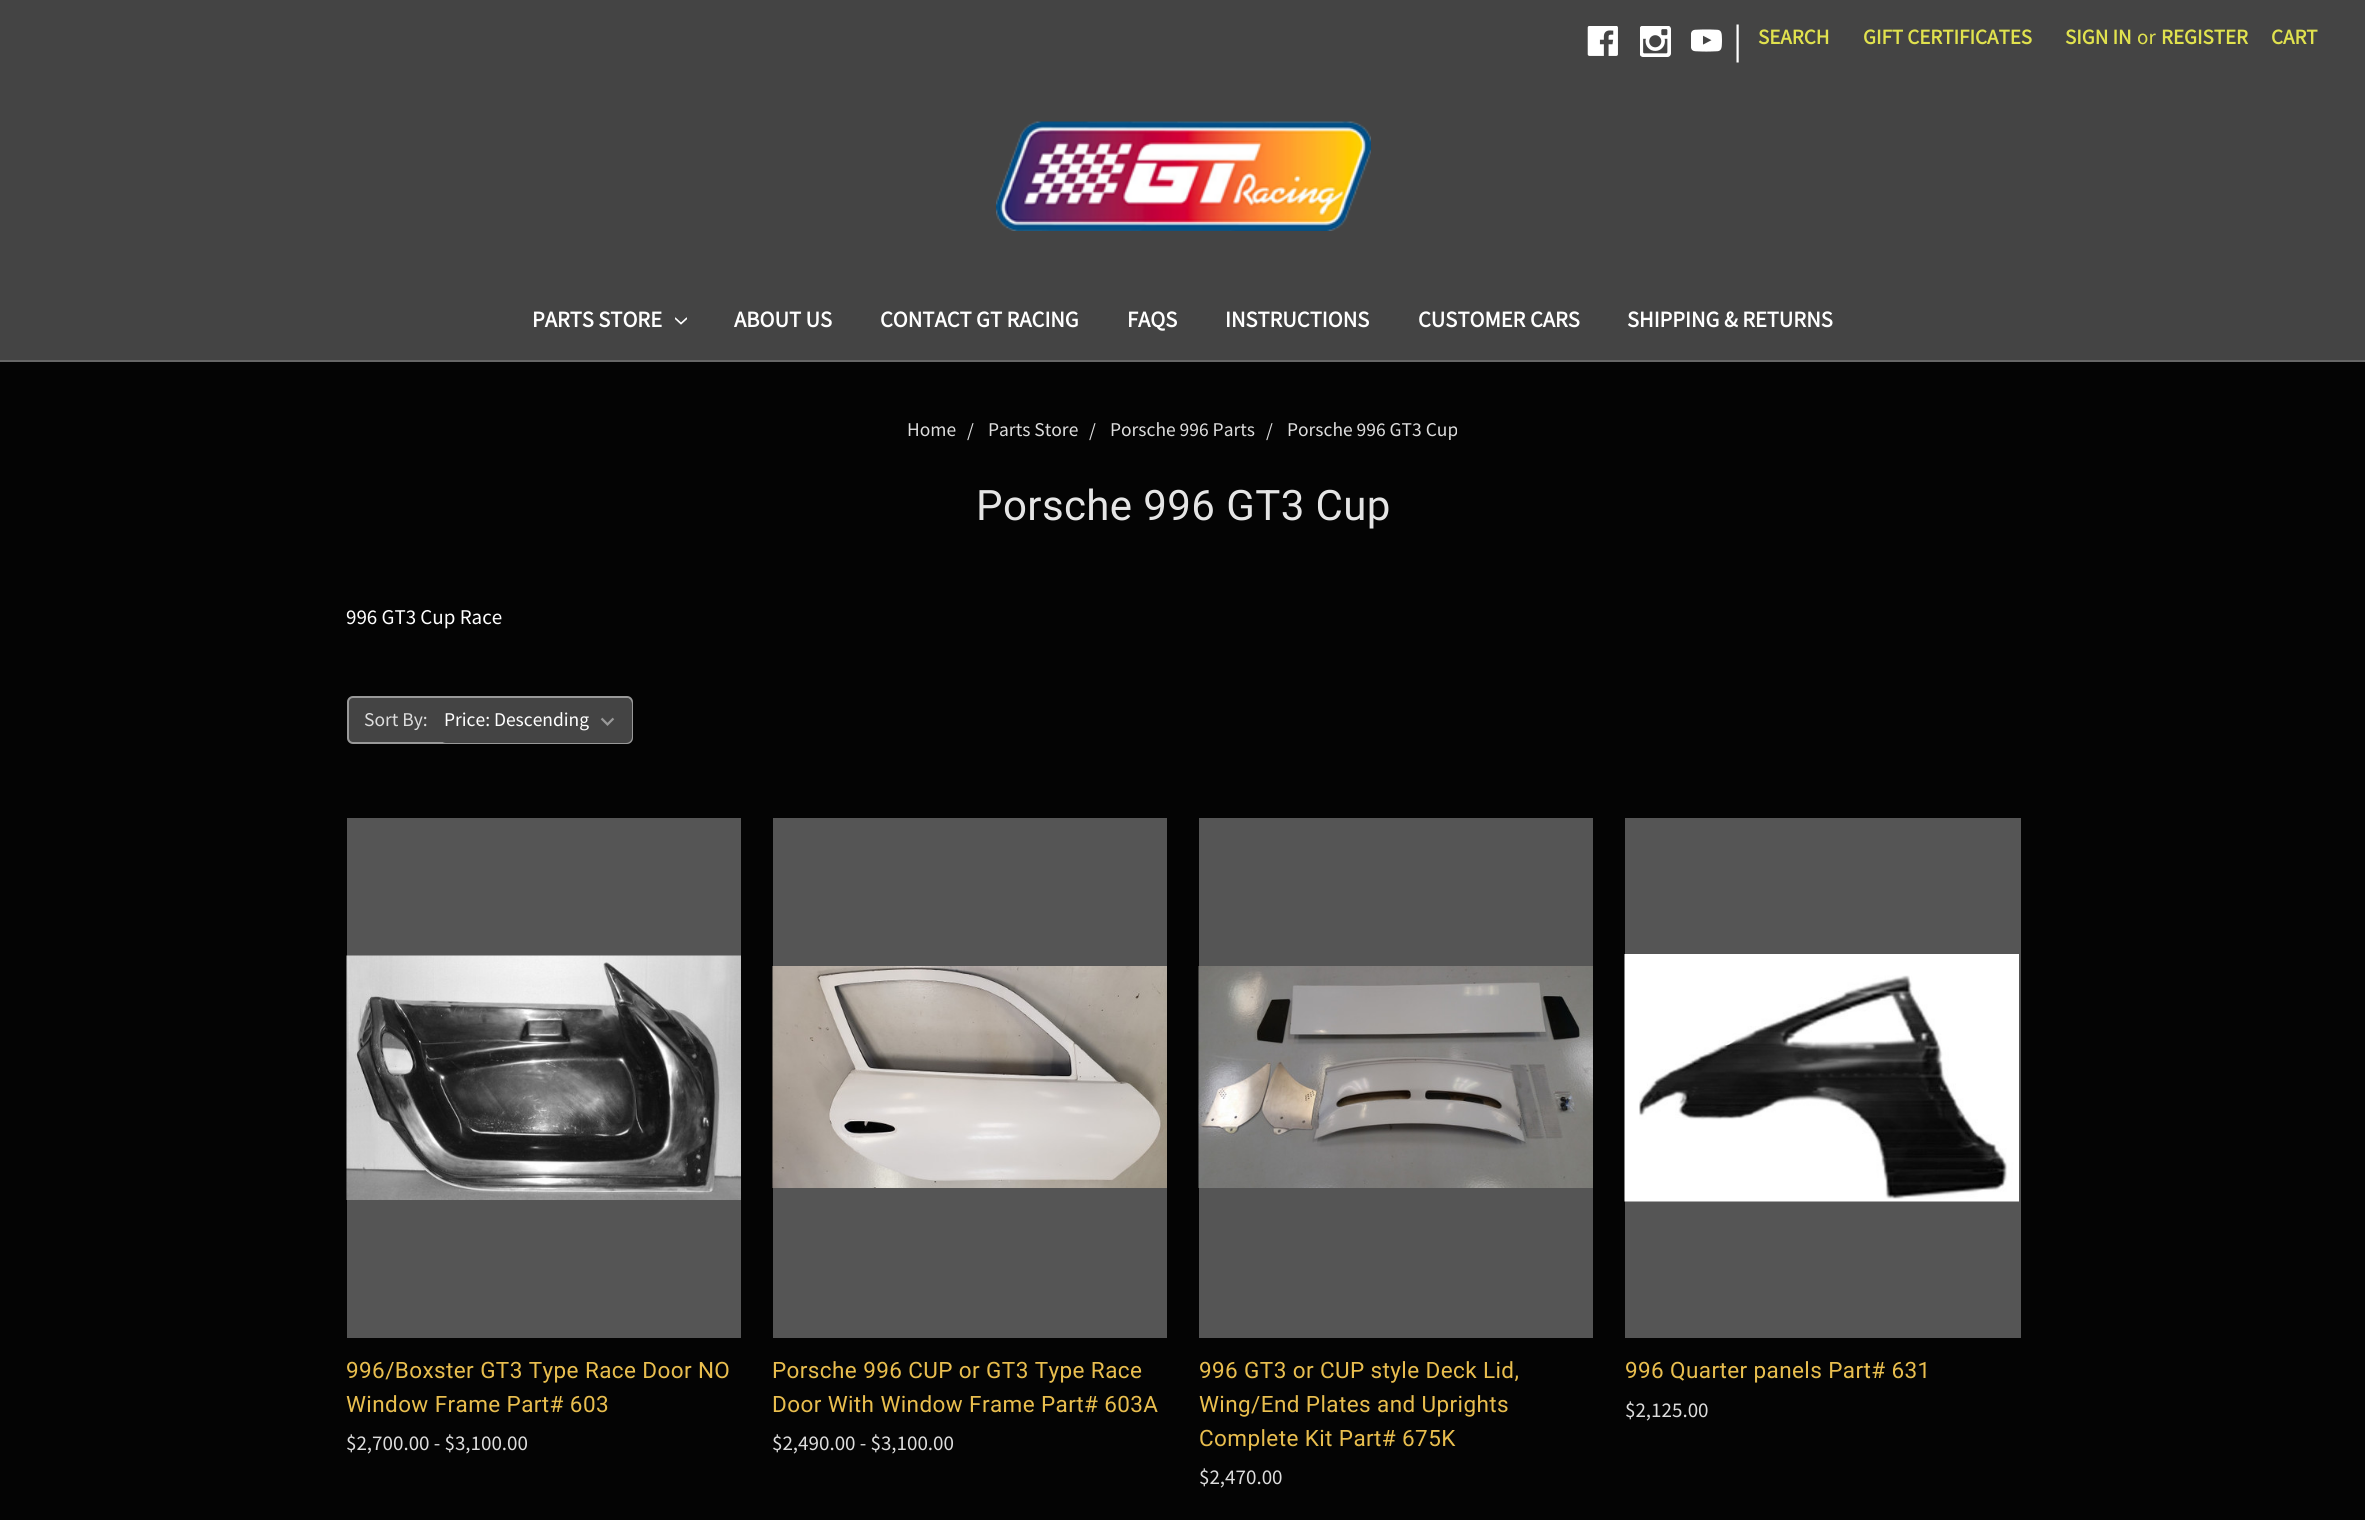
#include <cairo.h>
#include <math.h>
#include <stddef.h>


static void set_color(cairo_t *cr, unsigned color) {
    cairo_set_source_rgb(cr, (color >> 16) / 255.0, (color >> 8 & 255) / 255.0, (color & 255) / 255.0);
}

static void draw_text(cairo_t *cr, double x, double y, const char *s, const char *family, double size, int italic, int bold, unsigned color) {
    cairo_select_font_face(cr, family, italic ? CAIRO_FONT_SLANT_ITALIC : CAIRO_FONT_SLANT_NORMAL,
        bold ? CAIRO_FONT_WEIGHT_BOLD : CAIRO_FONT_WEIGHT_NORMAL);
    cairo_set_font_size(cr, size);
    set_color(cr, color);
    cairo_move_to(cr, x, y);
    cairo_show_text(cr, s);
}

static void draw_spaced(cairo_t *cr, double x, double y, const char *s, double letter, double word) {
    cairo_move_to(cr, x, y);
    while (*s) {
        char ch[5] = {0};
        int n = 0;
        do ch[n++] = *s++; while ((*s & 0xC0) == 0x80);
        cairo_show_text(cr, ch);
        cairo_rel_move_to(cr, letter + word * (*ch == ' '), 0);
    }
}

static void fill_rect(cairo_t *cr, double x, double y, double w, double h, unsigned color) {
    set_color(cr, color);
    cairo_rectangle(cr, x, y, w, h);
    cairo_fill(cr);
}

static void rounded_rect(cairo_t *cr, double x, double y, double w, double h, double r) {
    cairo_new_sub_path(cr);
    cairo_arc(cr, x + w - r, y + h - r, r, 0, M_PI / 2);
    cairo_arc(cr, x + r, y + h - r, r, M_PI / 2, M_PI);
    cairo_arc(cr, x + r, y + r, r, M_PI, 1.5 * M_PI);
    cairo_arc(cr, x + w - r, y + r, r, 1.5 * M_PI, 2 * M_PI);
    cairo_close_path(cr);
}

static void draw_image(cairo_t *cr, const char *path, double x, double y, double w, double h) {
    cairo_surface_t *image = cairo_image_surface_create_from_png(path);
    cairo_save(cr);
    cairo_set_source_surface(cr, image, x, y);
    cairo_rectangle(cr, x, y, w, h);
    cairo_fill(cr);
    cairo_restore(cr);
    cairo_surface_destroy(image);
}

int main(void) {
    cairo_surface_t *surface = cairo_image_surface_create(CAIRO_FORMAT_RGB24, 2365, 1520);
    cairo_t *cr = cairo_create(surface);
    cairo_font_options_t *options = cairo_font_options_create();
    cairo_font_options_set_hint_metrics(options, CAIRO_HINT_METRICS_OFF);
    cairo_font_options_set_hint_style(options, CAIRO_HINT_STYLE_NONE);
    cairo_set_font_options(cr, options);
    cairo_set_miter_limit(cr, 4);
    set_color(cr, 0x040404);
    cairo_paint(cr);
    fill_rect(cr, 0, 0, 2365, 360, 0x444444);
    fill_rect(cr, 0, 360, 2365, 2, 0x666666);
    draw_image(cr, "assets/img1.png", 1587, 26, 31, 30);
    draw_image(cr, "assets/img2.png", 1640, 26, 31, 31);
    draw_image(cr, "assets/img3.png", 1691, 29, 31, 23);
    draw_text(cr, 1733, 53, "|", "Source Sans Pro", 38, 0, 0, 0xFFFFFF);
    draw_text(cr, 1758, 44, "SEARCH", "Source Sans Pro", 21, 0, 1, 0xE1E24E);
    draw_text(cr, 1863, 44, "GIFT CERTIFICATES", "Source Sans Pro", 21, 0, 1, 0xE1E24E);
    draw_text(cr, 2065, 44, "SIGN IN", "Source Sans Pro", 21, 0, 1, 0xE1E24E);
    draw_text(cr, 2137, 44, "or", "Source Sans Pro", 21, 0, 0, 0xE1E24E);
    draw_text(cr, 2161, 44, "REGISTER", "Source Sans Pro", 21, 0, 1, 0xE1E24E);
    draw_text(cr, 2271, 44, "CART", "Source Sans Pro", 21, 0, 1, 0xE1E24E);
    draw_image(cr, "assets/img4.png", 996, 121, 375, 110);
    draw_text(cr, 532, 327, "PARTS STORE", "Source Sans Pro", 22.5, 0, 1, 0xFFFFFF);
    draw_image(cr, "assets/img5.png", 675, 317, 12, 8);
    draw_text(cr, 734, 327, "ABOUT US", "Source Sans Pro", 22.5, 0, 1, 0xFFFFFF);
    draw_text(cr, 880, 327, "CONTACT GT RACING", "Source Sans Pro", 22.5, 0, 1, 0xFFFFFF);
    draw_text(cr, 1127, 327, "FAQS", "Source Sans Pro", 22.5, 0, 1, 0xFFFFFF);
    draw_text(cr, 1225, 327, "INSTRUCTIONS", "Source Sans Pro", 22.5, 0, 1, 0xFFFFFF);
    draw_text(cr, 1418, 327, "CUSTOMER CARS", "Source Sans Pro", 22.5, 0, 1, 0xFFFFFF);
    draw_text(cr, 1627, 327, "SHIPPING & RETURNS", "Source Sans Pro", 22.5, 0, 1, 0xFFFFFF);
    draw_text(cr, 907, 436, "Home", "Source Sans Pro", 19.5, 0, 0, 0xDDDDDD);
    draw_text(cr, 967, 437, "/", "Source Sans Pro", 19.5, 0, 0, 0xDDDDDD);
    draw_text(cr, 988, 436, "Parts Store", "Source Sans Pro", 19.5, 0, 0, 0xDDDDDD);
    draw_text(cr, 1089, 437, "/", "Source Sans Pro", 19.5, 0, 0, 0xDDDDDD);
    draw_text(cr, 1110, 436, "Porsche 996 Parts", "Source Sans Pro", 19.5, 0, 0, 0xDDDDDD);
    draw_text(cr, 1266, 437, "/", "Source Sans Pro", 19.5, 0, 0, 0xDDDDDD);
    draw_text(cr, 1287, 436, "Porsche 996 GT3 Cup", "Source Sans Pro", 19.5, 0, 0, 0xDDDDDD);
    cairo_select_font_face(cr, "Roboto", CAIRO_FONT_SLANT_NORMAL, CAIRO_FONT_WEIGHT_NORMAL);
    cairo_set_font_size(cr, 42);
    set_color(cr, 0xE5E5E5);
    draw_spaced(cr, 976, 520, "Porsche 996 GT3 Cup", 0.4, 0);
    draw_text(cr, 346, 624, "996 GT3 Cup Race", "Source Sans Pro", 21, 0, 0, 0xFFFFFF);
    set_color(cr, 0x444444);
    rounded_rect(cr, 348, 697, 284, 46, 5);
    cairo_fill_preserve(cr);
    set_color(cr, 0x999999);
    cairo_stroke(cr);
    draw_text(cr, 364, 726, "Sort By:", "Source Sans Pro", 19.5, 0, 0, 0xDDDDDD);
    cairo_save(cr);
    rounded_rect(cr, 348, 698, 284, 45, 5);
    cairo_clip(cr);
    set_color(cr, 0x444444);
    rounded_rect(cr, 440, 698, 192, 45, 6);
    cairo_fill(cr);
    cairo_restore(cr);
    draw_image(cr, "assets/img6.png", 600, 717, 15, 9);
    draw_text(cr, 444, 726, "Price: Descending", "Source Sans Pro", 19.5, 0, 0, 0xFFFFFF);
    fill_rect(cr, 347, 818, 394, 520, 0x555555);
    draw_image(cr, "assets/img7.png", 346, 955, 395, 245);
    cairo_select_font_face(cr, "Roboto", CAIRO_FONT_SLANT_NORMAL, CAIRO_FONT_WEIGHT_NORMAL);
    cairo_set_font_size(cr, 22.5);
    set_color(cr, 0xE9BE4E);
    draw_spaced(cr, 346, 1378, "996/Boxster GT3 Type Race Door NO", 0.4, 0);
    draw_spaced(cr, 346, 1412, "Window Frame Part# 603", 0.4, 0);
    draw_text(cr, 346, 1450, "$2,700.00 - $3,100.00", "Source Sans Pro", 21, 0, 0, 0xDDDDDD);
    fill_rect(cr, 773, 818, 394, 520, 0x555555);
    draw_image(cr, "assets/img8.png", 772, 966, 395, 222);
    cairo_select_font_face(cr, "Roboto", CAIRO_FONT_SLANT_NORMAL, CAIRO_FONT_WEIGHT_NORMAL);
    cairo_set_font_size(cr, 22.5);
    set_color(cr, 0xE9BE4E);
    draw_spaced(cr, 772, 1378, "Porsche 996 CUP or GT3 Type Race", 0.4, 0);
    draw_spaced(cr, 772, 1412, "Door With Window Frame Part# 603A", 0.4, 0);
    draw_text(cr, 772, 1450, "$2,490.00 - $3,100.00", "Source Sans Pro", 21, 0, 0, 0xDDDDDD);
    fill_rect(cr, 1199, 818, 394, 520, 0x555555);
    draw_image(cr, "assets/img9.png", 1198, 966, 395, 222);
    cairo_select_font_face(cr, "Roboto", CAIRO_FONT_SLANT_NORMAL, CAIRO_FONT_WEIGHT_NORMAL);
    cairo_set_font_size(cr, 22.5);
    set_color(cr, 0xE9BE4E);
    draw_spaced(cr, 1199, 1378, "996 GT3 or CUP style Deck Lid,", 0.4, 0);
    draw_spaced(cr, 1199, 1412, "Wing/End Plates and Uprights", 0.4, 0);
    draw_spaced(cr, 1199, 1446, "Complete Kit Part# 675K", 0.4, 0);
    draw_text(cr, 1199, 1484, "$2,470.00", "Source Sans Pro", 21, 0, 0, 0xDDDDDD);
    fill_rect(cr, 1625, 818, 396, 520, 0x555555);
    draw_image(cr, "assets/img10.png", 1624, 954, 395, 248);
    cairo_select_font_face(cr, "Roboto", CAIRO_FONT_SLANT_NORMAL, CAIRO_FONT_WEIGHT_NORMAL);
    cairo_set_font_size(cr, 22.5);
    set_color(cr, 0xE9BE4E);
    draw_spaced(cr, 1625, 1378, "996 Quarter panels Part# 631", 0.4, 0);
    draw_text(cr, 1625, 1417, "$2,125.00", "Source Sans Pro", 21, 0, 0, 0xDDDDDD);
    cairo_surface_write_to_png(surface, "output.png");
    cairo_font_options_destroy(options);
    cairo_destroy(cr);
    cairo_surface_destroy(surface);
    return 0;
}
